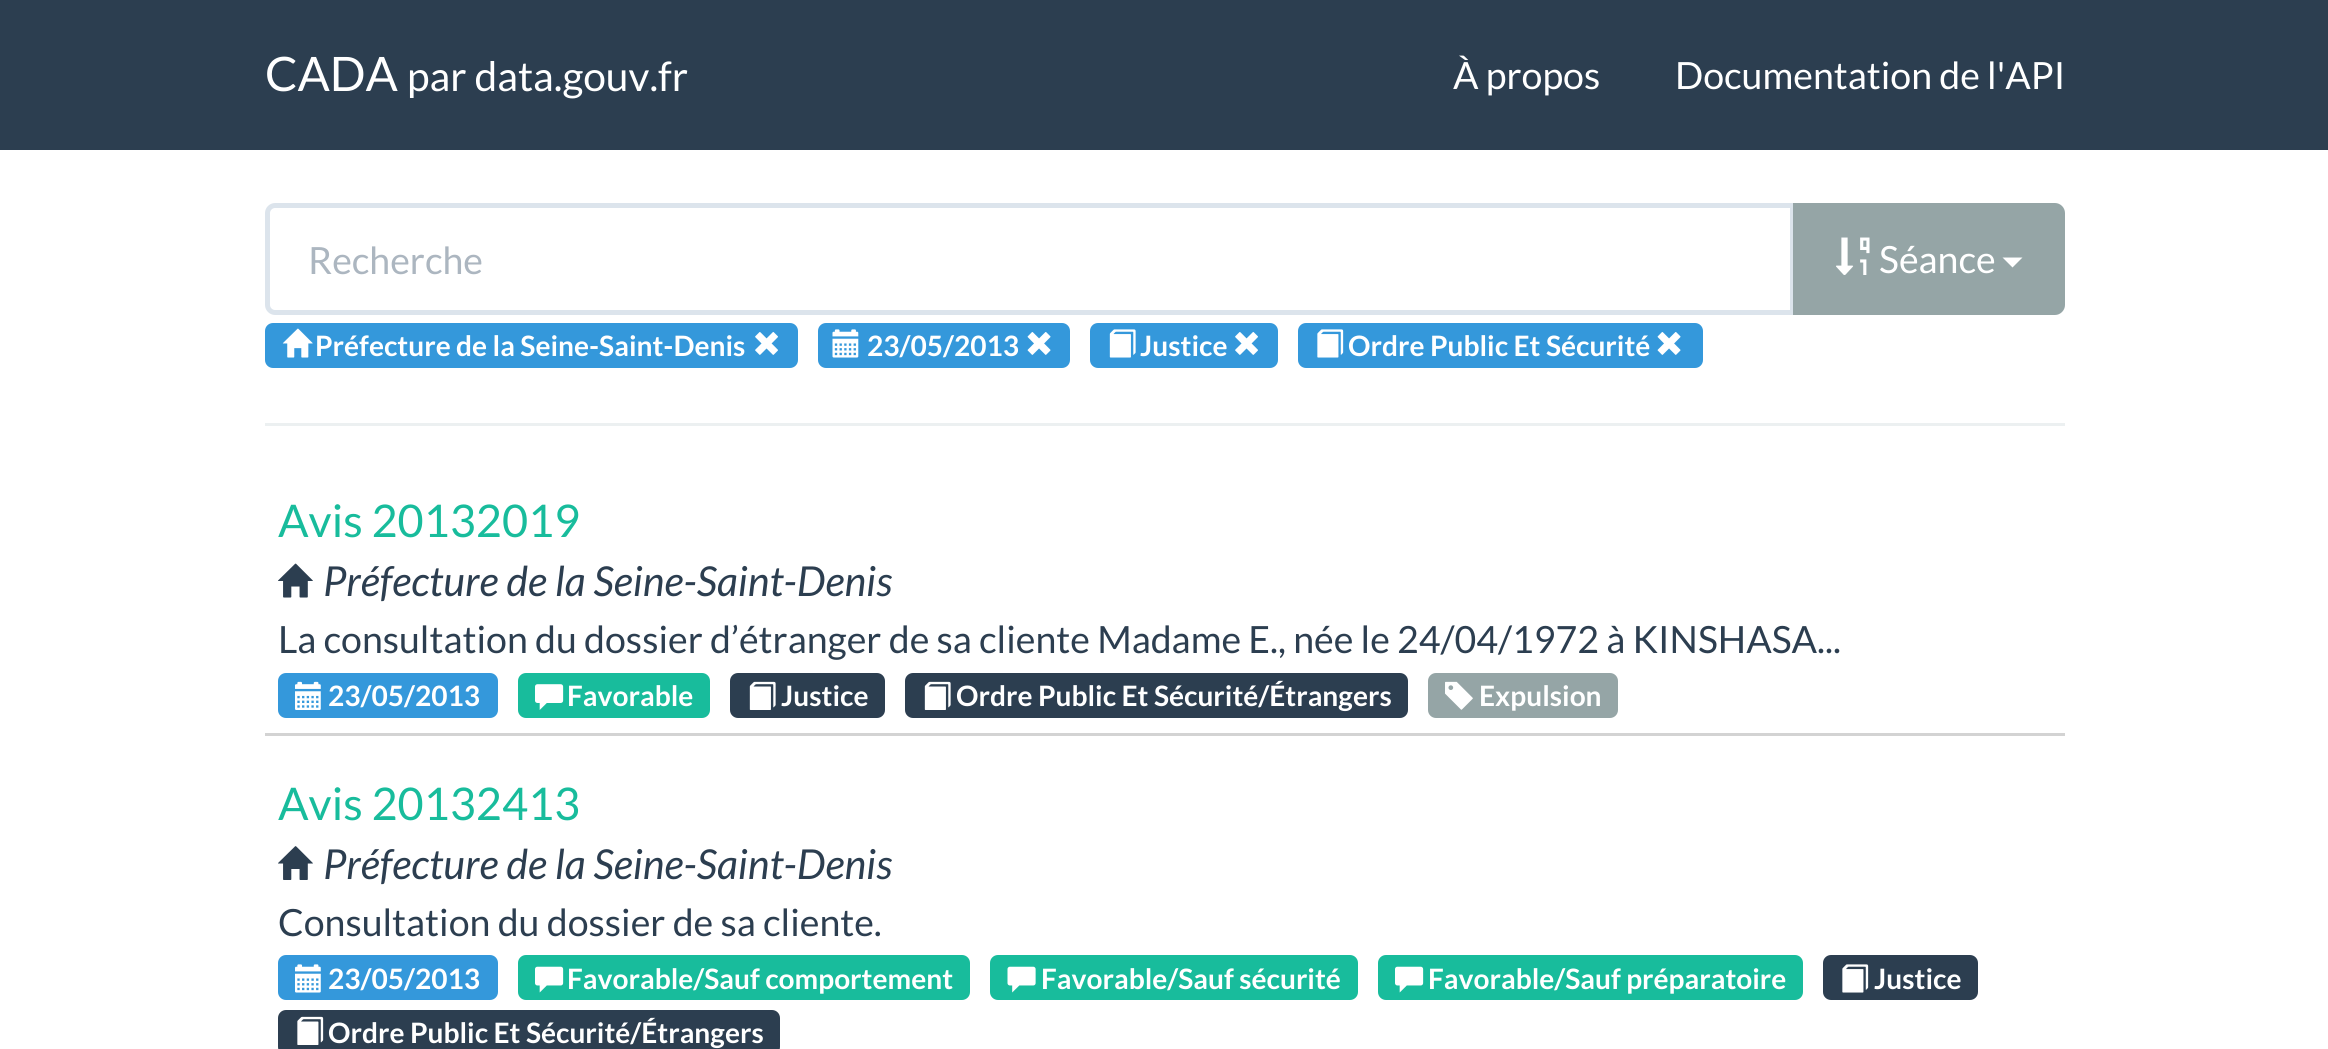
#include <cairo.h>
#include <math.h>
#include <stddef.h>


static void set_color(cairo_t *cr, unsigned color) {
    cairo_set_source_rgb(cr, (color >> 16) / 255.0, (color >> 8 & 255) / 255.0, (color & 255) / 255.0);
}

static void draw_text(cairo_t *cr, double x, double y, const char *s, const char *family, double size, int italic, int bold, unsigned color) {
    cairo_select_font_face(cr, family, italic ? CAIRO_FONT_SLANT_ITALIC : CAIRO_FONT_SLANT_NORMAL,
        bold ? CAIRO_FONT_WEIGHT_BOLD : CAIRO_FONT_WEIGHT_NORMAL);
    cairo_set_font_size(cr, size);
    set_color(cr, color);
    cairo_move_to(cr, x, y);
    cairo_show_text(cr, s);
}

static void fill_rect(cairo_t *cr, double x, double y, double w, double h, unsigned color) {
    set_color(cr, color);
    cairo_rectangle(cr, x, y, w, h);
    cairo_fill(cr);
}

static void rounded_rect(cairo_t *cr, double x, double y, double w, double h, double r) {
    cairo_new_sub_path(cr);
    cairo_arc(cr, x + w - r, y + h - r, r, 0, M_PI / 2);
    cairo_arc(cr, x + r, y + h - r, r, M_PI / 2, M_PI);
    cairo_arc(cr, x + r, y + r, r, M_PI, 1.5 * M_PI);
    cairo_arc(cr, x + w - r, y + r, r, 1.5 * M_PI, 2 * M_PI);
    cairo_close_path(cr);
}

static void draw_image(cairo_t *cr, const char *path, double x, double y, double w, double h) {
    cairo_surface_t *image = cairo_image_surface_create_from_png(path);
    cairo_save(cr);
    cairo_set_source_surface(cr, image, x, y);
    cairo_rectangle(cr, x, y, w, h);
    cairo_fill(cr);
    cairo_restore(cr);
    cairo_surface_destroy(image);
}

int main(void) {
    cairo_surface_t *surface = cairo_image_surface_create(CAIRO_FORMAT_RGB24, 2328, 1049);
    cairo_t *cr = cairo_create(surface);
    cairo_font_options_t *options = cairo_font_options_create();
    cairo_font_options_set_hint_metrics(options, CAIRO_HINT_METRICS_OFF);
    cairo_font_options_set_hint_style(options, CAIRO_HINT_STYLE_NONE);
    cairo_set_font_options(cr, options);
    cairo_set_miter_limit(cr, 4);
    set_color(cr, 0xFFFFFF);
    cairo_paint(cr);
    fill_rect(cr, 0, 0, 2328, 150, 0x2C3E50);
    draw_text(cr, 265, 91, "CADA", "Lato", 47.5, 0, 0, 0xFFFFFF);
    draw_text(cr, 407, 91, "par data.gouv.fr", "Lato", 40.75, 0, 0, 0xFFFFFF);
    draw_text(cr, 1453, 89, "À propos", "Lato", 37.5, 0, 0, 0xFFFFFF);
    draw_text(cr, 1675, 89, "Documentation de l'API", "Lato", 37.5, 0, 0, 0xFFFFFF);
    cairo_new_path(cr);
    cairo_move_to(cr, 275, 205.5);
    cairo_line_to(cr, 1792.5, 205.5);
    cairo_line_to(cr, 1792.5, 312.5);
    cairo_line_to(cr, 275, 312.5);
    cairo_curve_to(cr, 271, 312.5, 267.5, 309, 267.5, 305);
    cairo_line_to(cr, 267.5, 213);
    cairo_curve_to(cr, 267.5, 209, 271, 205.5, 275, 205.5);
    cairo_close_path(cr);
    set_color(cr, 0xDCE4EC);
    cairo_set_line_width(cr, 5);
    cairo_stroke(cr);
    draw_text(cr, 308, 274, "Recherche", "Lato", 37.5, 0, 0, 0xACB6C0);
    set_color(cr, 0x95A5A6);
    cairo_new_path(cr);
    cairo_move_to(cr, 1795.5, 205.5);
    cairo_line_to(cr, 2055, 205.5);
    cairo_curve_to(cr, 2059, 205.5, 2062.5, 209, 2062.5, 213);
    cairo_line_to(cr, 2062.5, 305);
    cairo_curve_to(cr, 2062.5, 309, 2059, 312.5, 2055, 312.5);
    cairo_line_to(cr, 1795.5, 312.5);
    cairo_close_path(cr);
    cairo_fill_preserve(cr);
    cairo_stroke(cr);
    draw_image(cr, "assets/img1.png", 1836, 237, 34, 38);
    draw_text(cr, 1879, 273, "Séance", "Lato", 37.5, 0, 0, 0xFFFFFF);
    cairo_new_path(cr);
    cairo_move_to(cr, 2002.5, 257.5);
    cairo_line_to(cr, 2022.5, 257.5);
    cairo_line_to(cr, 2012.5, 267.5);
    cairo_close_path(cr);
    cairo_fill(cr);
    set_color(cr, 0x3498DB);
    rounded_rect(cr, 265, 323, 533, 45, 8);
    cairo_fill(cr);
    draw_image(cr, "assets/img2.png", 282, 328, 31, 30);
    draw_text(cr, 315, 356, "Préfecture de la Seine-Saint-Denis", "Lato", 28.1, 0, 1, 0xFFFFFF);
    draw_image(cr, "assets/img3.png", 755, 332, 23, 23);
    set_color(cr, 0x3498DB);
    rounded_rect(cr, 818, 323, 252, 45, 8);
    cairo_fill(cr);
    draw_image(cr, "assets/img4.png", 832, 329, 27, 29);
    draw_text(cr, 867, 356, "23/05/2013", "Lato", 28.1, 0, 1, 0xFFFFFF);
    draw_image(cr, "assets/img5.png", 1027, 332, 24, 23);
    set_color(cr, 0x3498DB);
    rounded_rect(cr, 1090, 323, 188, 45, 8);
    cairo_fill(cr);
    draw_image(cr, "assets/img6.png", 1109, 329, 27, 29);
    draw_text(cr, 1140, 356, "Justice", "Lato", 28.1, 0, 1, 0xFFFFFF);
    draw_image(cr, "assets/img3.png", 1235, 332, 23, 23);
    set_color(cr, 0x3498DB);
    rounded_rect(cr, 1298, 323, 405, 45, 8);
    cairo_fill(cr);
    draw_image(cr, "assets/img7.png", 1317, 329, 27, 29);
    draw_text(cr, 1348, 356, "Ordre Public Et Sécurité", "Lato", 28.1, 0, 1, 0xFFFFFF);
    draw_image(cr, "assets/img5.png", 1657, 332, 24, 23);
    fill_rect(cr, 265, 423, 1800, 3, 0xECF0F1);
    fill_rect(cr, 265, 733, 1800, 3, 0xD3D3D3);
    draw_text(cr, 278, 537, "Avis 20132019", "Lato", 45, 0, 0, 0x18BC9C);
    draw_image(cr, "assets/img8.png", 278, 563, 35, 35);
    draw_text(cr, 323, 596, "Préfecture de la Seine-Saint-Denis", "Lato", 41.25, 1, 0, 0x2C3E50);
    draw_text(cr, 278, 653, "La consultation du dossier d’étranger de sa cliente Madame E., née le 24/04/1972 à KINSHASA...", "Lato", 37.5, 0, 0, 0x2C3E50);
    set_color(cr, 0x3498DB);
    rounded_rect(cr, 278, 673, 220, 45, 8);
    cairo_fill(cr);
    draw_image(cr, "assets/img9.png", 295, 681, 26, 29);
    draw_text(cr, 328, 706, "23/05/2013", "Lato", 28.1, 0, 1, 0xFFFFFF);
    set_color(cr, 0x18BC9C);
    rounded_rect(cr, 518, 673, 192, 45, 8);
    cairo_fill(cr);
    draw_image(cr, "assets/img10.png", 535, 684, 29, 26);
    draw_text(cr, 567, 706, "Favorable", "Lato", 28.1, 0, 1, 0xFFFFFF);
    set_color(cr, 0x2C3E50);
    rounded_rect(cr, 730, 673, 155, 45, 8);
    cairo_fill(cr);
    draw_image(cr, "assets/img11.png", 749, 681, 27, 29);
    draw_text(cr, 781, 706, "Justice", "Lato", 28.1, 0, 1, 0xFFFFFF);
    set_color(cr, 0x2C3E50);
    rounded_rect(cr, 905, 673, 503, 45, 8);
    cairo_fill(cr);
    draw_image(cr, "assets/img11.png", 924, 681, 27, 29);
    draw_text(cr, 956, 706, "Ordre Public Et Sécurité/Étrangers", "Lato", 28.1, 0, 1, 0xFFFFFF);
    set_color(cr, 0x95A5A6);
    rounded_rect(cr, 1428, 673, 190, 45, 8);
    cairo_fill(cr);
    draw_image(cr, "assets/img12.png", 1445, 681, 28, 29);
    draw_text(cr, 1479, 706, "Expulsion", "Lato", 28.1, 0, 1, 0xFFFFFF);
    draw_text(cr, 278, 820, "Avis 20132413", "Lato", 45, 0, 0, 0x18BC9C);
    draw_image(cr, "assets/img13.png", 278, 846, 35, 34);
    draw_text(cr, 323, 879, "Préfecture de la Seine-Saint-Denis", "Lato", 41.25, 1, 0, 0x2C3E50);
    draw_text(cr, 278, 936, "Consultation du dossier de sa cliente.", "Lato", 37.5, 0, 0, 0x2C3E50);
    set_color(cr, 0x3498DB);
    rounded_rect(cr, 278, 955, 220, 45, 8);
    cairo_fill(cr);
    draw_image(cr, "assets/img14.png", 295, 964, 26, 29);
    draw_text(cr, 328, 989, "23/05/2013", "Lato", 28.1, 0, 1, 0xFFFFFF);
    set_color(cr, 0x18BC9C);
    rounded_rect(cr, 518, 955, 452, 45, 8);
    cairo_fill(cr);
    draw_image(cr, "assets/img15.png", 535, 966, 29, 27);
    draw_text(cr, 567, 989, "Favorable/Sauf comportement", "Lato", 28.1, 0, 1, 0xFFFFFF);
    set_color(cr, 0x18BC9C);
    rounded_rect(cr, 990, 955, 368, 45, 8);
    cairo_fill(cr);
    draw_image(cr, "assets/img16.png", 1007, 966, 29, 27);
    draw_text(cr, 1041, 989, "Favorable/Sauf sécurité", "Lato", 28.1, 0, 1, 0xFFFFFF);
    set_color(cr, 0x18BC9C);
    rounded_rect(cr, 1378, 955, 425, 45, 8);
    cairo_fill(cr);
    draw_image(cr, "assets/img15.png", 1395, 966, 29, 27);
    draw_text(cr, 1428, 989, "Favorable/Sauf préparatoire", "Lato", 28.1, 0, 1, 0xFFFFFF);
    set_color(cr, 0x2C3E50);
    rounded_rect(cr, 1823, 955, 155, 45, 8);
    cairo_fill(cr);
    draw_image(cr, "assets/img17.png", 1842, 964, 27, 29);
    draw_text(cr, 1874, 989, "Justice", "Lato", 28.1, 0, 1, 0xFFFFFF);
    set_color(cr, 0x2C3E50);
    rounded_rect(cr, 278, 1010, 502, 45, 8);
    cairo_fill(cr);
    draw_image(cr, "assets/img18.png", 297, 1016, 27, 29);
    draw_text(cr, 328, 1043, "Ordre Public Et Sécurité/Étrangers", "Lato", 28.1, 0, 1, 0xFFFFFF);
    cairo_surface_write_to_png(surface, "output.png");
    cairo_font_options_destroy(options);
    cairo_destroy(cr);
    cairo_surface_destroy(surface);
    return 0;
}
